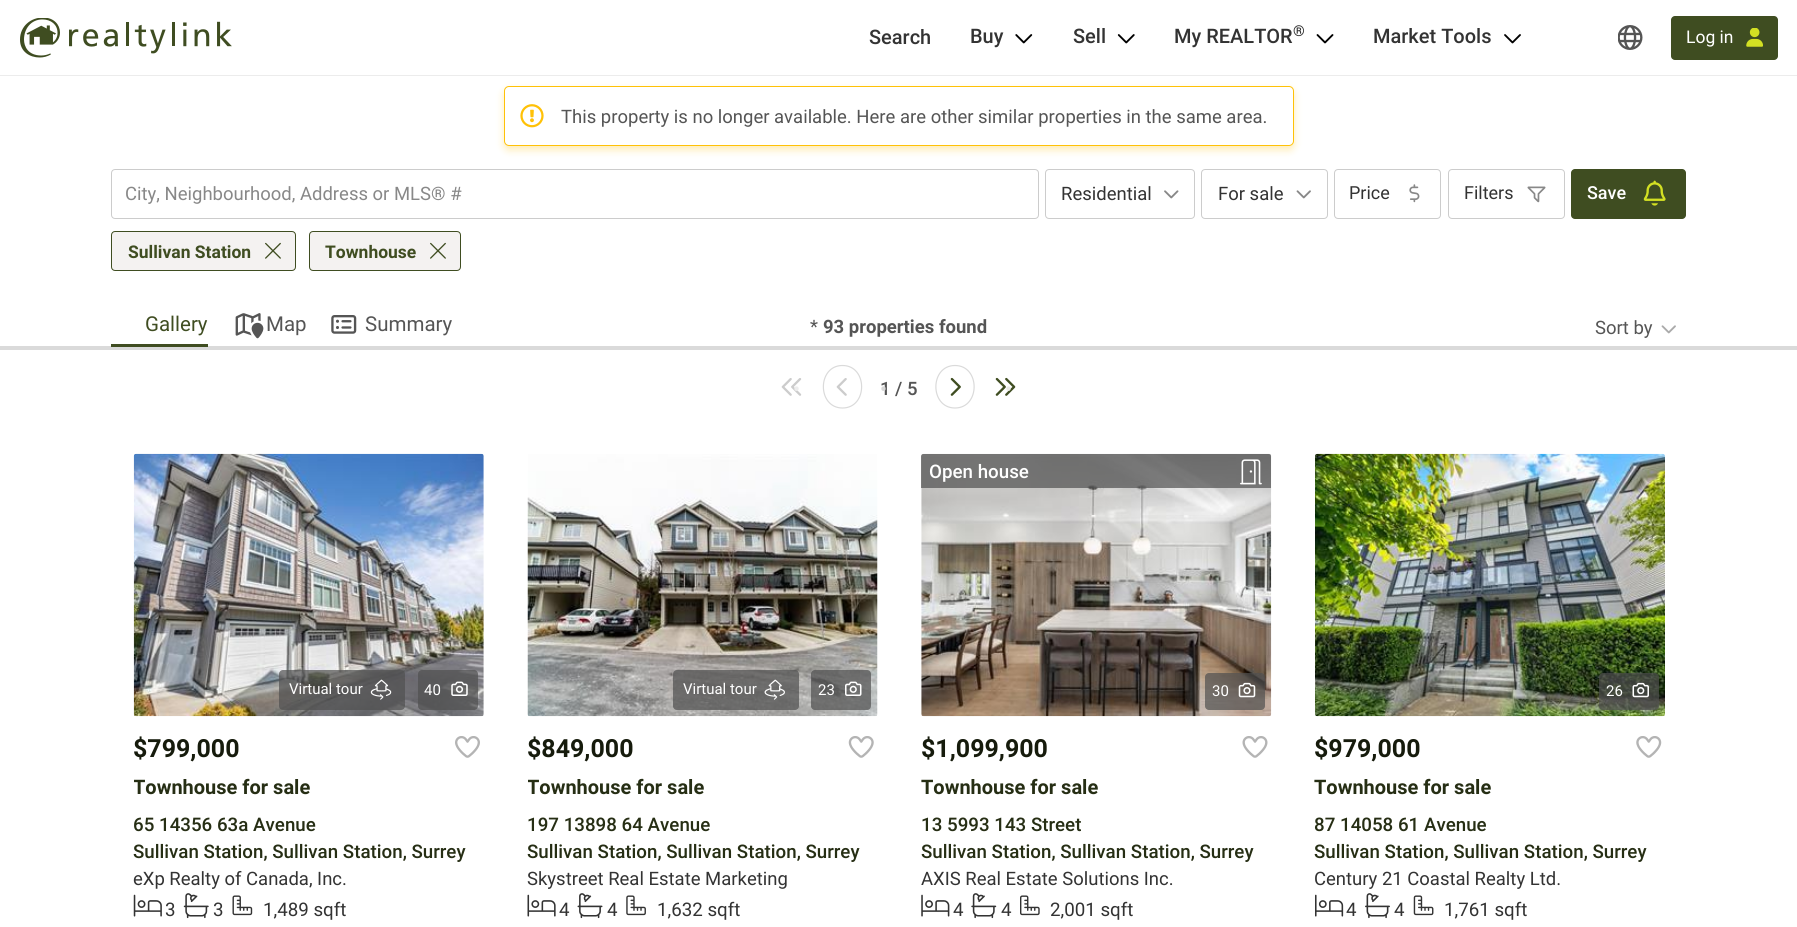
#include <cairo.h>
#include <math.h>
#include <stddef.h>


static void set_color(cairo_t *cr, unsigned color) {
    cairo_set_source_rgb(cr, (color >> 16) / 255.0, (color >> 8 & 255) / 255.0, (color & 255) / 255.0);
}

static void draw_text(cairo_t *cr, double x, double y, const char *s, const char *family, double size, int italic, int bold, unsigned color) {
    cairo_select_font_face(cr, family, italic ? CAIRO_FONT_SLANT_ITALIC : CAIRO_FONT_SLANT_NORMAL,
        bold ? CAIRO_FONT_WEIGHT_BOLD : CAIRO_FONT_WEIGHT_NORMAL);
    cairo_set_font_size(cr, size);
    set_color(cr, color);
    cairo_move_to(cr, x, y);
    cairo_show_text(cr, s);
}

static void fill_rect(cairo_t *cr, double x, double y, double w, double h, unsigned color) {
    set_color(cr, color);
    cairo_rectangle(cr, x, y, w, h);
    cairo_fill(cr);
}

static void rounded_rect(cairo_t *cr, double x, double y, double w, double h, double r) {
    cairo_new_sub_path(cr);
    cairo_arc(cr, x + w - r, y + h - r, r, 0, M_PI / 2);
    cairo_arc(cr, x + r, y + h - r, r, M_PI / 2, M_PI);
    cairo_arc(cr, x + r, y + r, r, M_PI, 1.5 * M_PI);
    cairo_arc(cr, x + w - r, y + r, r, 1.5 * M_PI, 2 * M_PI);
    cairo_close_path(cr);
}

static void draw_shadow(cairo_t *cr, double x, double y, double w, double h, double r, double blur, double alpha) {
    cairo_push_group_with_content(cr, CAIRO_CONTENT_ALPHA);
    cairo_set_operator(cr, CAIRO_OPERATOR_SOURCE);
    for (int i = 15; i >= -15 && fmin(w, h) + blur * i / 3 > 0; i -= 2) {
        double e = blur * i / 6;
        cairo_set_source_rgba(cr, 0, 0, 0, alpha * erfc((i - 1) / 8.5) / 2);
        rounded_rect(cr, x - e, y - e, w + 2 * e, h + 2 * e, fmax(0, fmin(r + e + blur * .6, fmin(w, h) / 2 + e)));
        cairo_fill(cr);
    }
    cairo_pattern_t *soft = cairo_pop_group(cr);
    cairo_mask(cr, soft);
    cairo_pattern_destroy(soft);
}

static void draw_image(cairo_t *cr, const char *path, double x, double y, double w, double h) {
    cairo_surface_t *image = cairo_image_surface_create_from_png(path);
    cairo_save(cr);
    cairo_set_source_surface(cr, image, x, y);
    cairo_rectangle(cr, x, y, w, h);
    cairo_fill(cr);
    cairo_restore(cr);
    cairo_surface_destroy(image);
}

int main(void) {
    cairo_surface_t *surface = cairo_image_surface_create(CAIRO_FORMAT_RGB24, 1797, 927);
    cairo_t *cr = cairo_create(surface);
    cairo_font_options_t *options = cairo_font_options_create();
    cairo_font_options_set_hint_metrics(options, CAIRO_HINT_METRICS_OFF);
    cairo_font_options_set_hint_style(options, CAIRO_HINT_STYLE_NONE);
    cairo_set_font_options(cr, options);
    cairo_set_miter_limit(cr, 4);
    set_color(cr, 0xFFFFFF);
    cairo_paint(cr);
    fill_rect(cr, 0, 75, 1797, 1, 0xECECEC);
    draw_image(cr, "assets/img1.png", 20, 18, 212, 40);
    draw_text(cr, 869, 44, "Search", "Roboto Medium", 20, 0, 0, 0x333333);
    draw_text(cr, 970, 43, "Buy", "Roboto Medium", 20, 0, 0, 0x333333);
    draw_image(cr, "assets/img2.png", 1015, 34, 18, 10);
    draw_text(cr, 1073, 43, "Sell", "Roboto Medium", 20, 0, 0, 0x333333);
    draw_image(cr, "assets/img3.png", 1117, 34, 18, 10);
    draw_text(cr, 1174, 43, "My REALTOR", "Roboto Medium", 20, 0, 0, 0x333333);
    draw_text(cr, 1293, 36, "®", "Roboto Medium", 15, 0, 0, 0x333333);
    draw_image(cr, "assets/img4.png", 1316, 34, 18, 10);
    draw_text(cr, 1373, 43, "Market Tools", "Roboto Medium", 20, 0, 0, 0x333333);
    draw_image(cr, "assets/img5.png", 1504, 34, 17, 10);
    draw_image(cr, "assets/img6.png", 1618, 25, 25, 25);
    set_color(cr, 0x3F4D21);
    rounded_rect(cr, 1671, 16, 107, 44, 4);
    cairo_fill(cr);
    draw_text(cr, 1686, 43, "Log in", "Roboto", 17.5, 0, 0, 0xFFFFFF);
    draw_image(cr, "assets/img7.png", 1746, 28, 17, 19);
    set_color(cr, 0xFFC107);
    draw_shadow(cr, 504, 90, 790, 60, 5, 4, 0.3);
    set_color(cr, 0xFFFFFF);
    rounded_rect(cr, 504, 86, 790, 60, 5);
    cairo_fill(cr);
    draw_image(cr, "assets/img8.png", 520, 104, 24, 24);
    rounded_rect(cr, 504.5, 86.5, 789, 59, 4.5);
    set_color(cr, 0xFFC107);
    cairo_set_line_width(cr, 1);
    cairo_stroke(cr);
    draw_text(cr, 561, 123, "This property is no longer available. Here are other similar properties in the same area.", "Roboto", 18.5, 0, 0, 0x555555);
    rounded_rect(cr, 111.5, 169.5, 927, 49, 3.5);
    set_color(cr, 0xCCCCCC);
    cairo_stroke(cr);
    draw_text(cr, 125, 200, "City, Neighbourhood, Address or MLS® #", "Roboto", 18.5, 0, 0, 0x888888);
    rounded_rect(cr, 1045.5, 169.5, 149, 49, 3.5);
    set_color(cr, 0xCCCCCC);
    cairo_stroke(cr);
    draw_text(cr, 1061, 200, "Residential", "Roboto", 18.5, 0, 0, 0x333333);
    draw_image(cr, "assets/img9.png", 1164, 190, 15, 9);
    rounded_rect(cr, 1201.5, 169.5, 126, 49, 3.5);
    set_color(cr, 0xCCCCCC);
    cairo_stroke(cr);
    draw_text(cr, 1218, 200, "For sale", "Roboto", 18.5, 0, 0, 0x333333);
    draw_image(cr, "assets/img10.png", 1296, 190, 15, 9);
    rounded_rect(cr, 1334.5, 169.5, 106, 49, 3.5);
    set_color(cr, 0xCCCCCC);
    cairo_stroke(cr);
    draw_text(cr, 1349, 199, "Price", "Roboto", 18, 0, 0, 0x333333);
    draw_image(cr, "assets/img11.png", 1409, 184, 11, 19);
    rounded_rect(cr, 1448.5, 169.5, 116, 49, 3.5);
    set_color(cr, 0xCCCCCC);
    cairo_stroke(cr);
    draw_text(cr, 1464, 199, "Filters", "Roboto", 18, 0, 0, 0x333333);
    draw_image(cr, "assets/img12.png", 1527, 186, 19, 17);
    set_color(cr, 0x3F4D21);
    rounded_rect(cr, 1571, 169, 115, 50, 4);
    cairo_fill(cr);
    draw_text(cr, 1587, 199, "Save", "Roboto Medium", 18, 0, 0, 0xFFFFFF);
    draw_image(cr, "assets/img13.png", 1643, 180, 23, 26);
    set_color(cr, 0xF4F2F1);
    rounded_rect(cr, 111.5, 231.5, 184, 39, 3.5);
    cairo_fill_preserve(cr);
    set_color(cr, 0x3F4D21);
    cairo_stroke(cr);
    draw_text(cr, 128, 258, "Sullivan Station", "Roboto", 17.5, 0, 1, 0x3F4D21);
    draw_image(cr, "assets/img14.png", 265, 242, 16, 17);
    set_color(cr, 0xF4F2F1);
    rounded_rect(cr, 309.5, 231.5, 151, 39, 3.5);
    cairo_fill_preserve(cr);
    set_color(cr, 0x3F4D21);
    cairo_stroke(cr);
    draw_text(cr, 325, 258, "Townhouse", "Roboto", 17.5, 0, 1, 0x3F4D21);
    draw_image(cr, "assets/img14.png", 430, 242, 16, 17);
    fill_rect(cr, 0, 346, 1797, 4, 0xDADADA);
    fill_rect(cr, 111, 344, 97, 3, 0x3F4D21);
    draw_text(cr, 145, 331, "Gallery", "Roboto", 20.5, 0, 0, 0x3F4D21);
    draw_image(cr, "assets/img15.png", 235, 313, 29, 26);
    draw_text(cr, 266, 331, "Map", "Roboto", 20.5, 0, 0, 0x555555);
    draw_image(cr, "assets/img16.png", 331, 315, 26, 19);
    draw_text(cr, 365, 331, "Summary", "Roboto", 20.5, 0, 0, 0x555555);
    draw_text(cr, 810, 333, "*", "Roboto", 18.5, 0, 0, 0x555555);
    draw_text(cr, 823, 333, "93 properties found", "Roboto", 18.5, 0, 1, 0x555555);
    draw_text(cr, 1595, 334, "Sort by", "Roboto", 18.5, 0, 0, 0x555555);
    draw_image(cr, "assets/img17.png", 1661, 325, 15, 9);
    draw_image(cr, "assets/img18.png", 781, 378, 21, 18);
    draw_text(cr, 793, 396, "•", "Roboto Medium", 20, 0, 0, 0xEDEDED);
    cairo_new_path(cr);
    cairo_move_to(cr, 842.5, 365.5);
    cairo_curve_to(cr, 868, 365.5, 868, 408, 842.5, 408);
    cairo_curve_to(cr, 817, 408, 817, 365.5, 842.5, 365.5);
    cairo_close_path(cr);
    set_color(cr, 0xDADADA);
    cairo_set_line_width(cr, 1.2);
    cairo_stroke(cr);
    draw_image(cr, "assets/img19.png", 836, 378, 11, 18);
    draw_text(cr, 880, 395, "1 / 5", "Roboto Medium", 18.5, 0, 0, 0x555555);
    draw_text(cr, 880, 396, "•", "Roboto Medium", 20, 0, 0, 0xD6D6D6);
    cairo_new_path(cr);
    cairo_move_to(cr, 955, 365.5);
    cairo_curve_to(cr, 980.5, 365.5, 980.5, 408, 955, 408);
    cairo_curve_to(cr, 929.5, 408, 929.5, 365.5, 955, 365.5);
    cairo_close_path(cr);
    set_color(cr, 0xDADADA);
    cairo_stroke(cr);
    draw_image(cr, "assets/img20.png", 950, 377, 11, 19);
    draw_image(cr, "assets/img21.png", 995, 377, 21, 19);
    draw_text(cr, 1005, 396, "•", "Roboto Medium", 20, 0, 0, 0xEAEBE6);
    draw_image(cr, "assets/img22.png", 133, 453, 351, 264);
    cairo_set_source_rgba(cr, 0.314, 0.314, 0.314, 0.7);
    rounded_rect(cr, 279, 670, 126, 40, 4);
    cairo_fill(cr);
    draw_text(cr, 289, 694, "Virtual tour", "Roboto", 15, 0, 0, 0xFFFFFF);
    draw_image(cr, "assets/img23.png", 370, 679, 22, 21);
    cairo_set_source_rgba(cr, 0.314, 0.314, 0.314, 0.7);
    rounded_rect(cr, 418, 670, 60, 40, 4);
    cairo_fill(cr);
    draw_text(cr, 424, 695, "40", "Roboto", 15, 0, 0, 0xFFFFFF);
    draw_image(cr, "assets/img24.png", 451, 681, 17, 15);
    draw_text(cr, 133, 757, "$799,000", "Roboto", 25, 0, 1, 0x161B0C);
    draw_image(cr, "assets/img25.png", 455, 736, 25, 22);
    cairo_save(cr);
    cairo_rectangle(cr, 134, 774, 350, 30);
    cairo_clip(cr);
    draw_text(cr, 133, 794, "Townhouse for sale", "Roboto", 20, 0, 1, 0x262E14);
    cairo_restore(cr);
    draw_text(cr, 133, 831, "65 14356 63a Avenue", "Roboto Medium", 18.75, 0, 0, 0x262E14);
    draw_text(cr, 133, 858, "Sullivan Station, Sullivan Station, Surrey", "Roboto Medium", 18.75, 0, 0, 0x262E14);
    draw_text(cr, 133, 885, "eXp Realty of Canada, Inc.", "Roboto", 18.5, 0, 0, 0x333333);
    draw_image(cr, "assets/img26.png", 133, 894, 29, 23);
    draw_text(cr, 165, 916, "3", "Roboto", 18.75, 0, 0, 0x333333);
    draw_image(cr, "assets/img27.png", 183, 893, 26, 26);
    draw_text(cr, 213, 916, "3", "Roboto", 18.75, 0, 0, 0x333333);
    draw_image(cr, "assets/img28.png", 232, 895, 21, 21);
    draw_text(cr, 263, 916, "1,489 sqft", "Roboto", 18.75, 0, 0, 0x333333);
    draw_image(cr, "assets/img29.png", 527, 454, 351, 263);
    cairo_set_source_rgba(cr, 0.314, 0.314, 0.314, 0.7);
    rounded_rect(cr, 673, 670, 126, 40, 4);
    cairo_fill(cr);
    draw_text(cr, 683, 694, "Virtual tour", "Roboto", 15, 0, 0, 0xFFFFFF);
    draw_image(cr, "assets/img30.png", 764, 679, 21, 21);
    cairo_set_source_rgba(cr, 0.314, 0.314, 0.314, 0.7);
    rounded_rect(cr, 811, 670, 60, 40, 4);
    cairo_fill(cr);
    draw_text(cr, 818, 695, "23", "Roboto", 15, 0, 0, 0xFFFFFF);
    draw_image(cr, "assets/img31.png", 845, 681, 17, 15);
    draw_text(cr, 527, 757, "$849,000", "Roboto", 25, 0, 1, 0x161B0C);
    draw_image(cr, "assets/img32.png", 848, 736, 26, 22);
    cairo_save(cr);
    cairo_rectangle(cr, 528, 774, 350, 30);
    cairo_clip(cr);
    draw_text(cr, 527, 794, "Townhouse for sale", "Roboto", 20, 0, 1, 0x262E14);
    cairo_restore(cr);
    draw_text(cr, 527, 831, "197 13898 64 Avenue", "Roboto Medium", 18.75, 0, 0, 0x262E14);
    draw_text(cr, 527, 858, "Sullivan Station, Sullivan Station, Surrey", "Roboto Medium", 18.75, 0, 0, 0x262E14);
    draw_text(cr, 527, 885, "Skystreet Real Estate Marketing", "Roboto", 18.5, 0, 0, 0x333333);
    draw_image(cr, "assets/img33.png", 527, 894, 29, 23);
    draw_text(cr, 559, 916, "4", "Roboto", 18.75, 0, 0, 0x333333);
    draw_image(cr, "assets/img34.png", 577, 893, 26, 26);
    draw_text(cr, 607, 916, "4", "Roboto", 18.75, 0, 0, 0x333333);
    draw_image(cr, "assets/img35.png", 626, 895, 20, 21);
    draw_text(cr, 657, 916, "1,632 sqft", "Roboto", 18.75, 0, 0, 0x333333);
    draw_image(cr, "assets/img36.png", 921, 453, 351, 264);
    cairo_set_source_rgba(cr, 0.314, 0.314, 0.314, 0.7);
    cairo_new_path(cr);
    cairo_move_to(cr, 923.5, 454);
    cairo_line_to(cr, 1268.5, 454);
    cairo_curve_to(cr, 1270, 454, 1271, 455, 1271, 456.5);
    cairo_line_to(cr, 1271, 488);
    cairo_line_to(cr, 921, 488);
    cairo_line_to(cr, 921, 456.5);
    cairo_curve_to(cr, 921, 455, 922, 454, 923.5, 454);
    cairo_close_path(cr);
    cairo_fill(cr);
    draw_text(cr, 929, 478, "Open house", "Roboto Medium", 18.75, 0, 0, 0xFFFFFF);
    draw_image(cr, "assets/img37.png", 1240, 459, 22, 26);
    cairo_set_source_rgba(cr, 0.314, 0.314, 0.314, 0.7);
    rounded_rect(cr, 1205, 673, 60, 37, 4);
    cairo_fill(cr);
    draw_text(cr, 1212, 696, "30", "Roboto", 15, 0, 0, 0xFFFFFF);
    draw_image(cr, "assets/img38.png", 1238, 682, 18, 16);
    draw_text(cr, 921, 757, "$1,099,900", "Roboto", 25, 0, 1, 0x161B0C);
    draw_image(cr, "assets/img39.png", 1242, 736, 26, 22);
    draw_text(cr, 921, 794, "Townhouse for sale", "Roboto", 20, 0, 1, 0x262E14);
    draw_text(cr, 921, 831, "13 5993 143 Street", "Roboto Medium", 18.75, 0, 0, 0x262E14);
    draw_text(cr, 921, 858, "Sullivan Station, Sullivan Station, Surrey", "Roboto Medium", 18.75, 0, 0, 0x262E14);
    draw_text(cr, 921, 885, "AXIS Real Estate Solutions Inc.", "Roboto", 18.5, 0, 0, 0x333333);
    draw_image(cr, "assets/img40.png", 921, 894, 29, 23);
    draw_text(cr, 953, 916, "4", "Roboto", 18.75, 0, 0, 0x333333);
    draw_image(cr, "assets/img41.png", 971, 893, 26, 26);
    draw_text(cr, 1001, 916, "4", "Roboto", 18.75, 0, 0, 0x333333);
    draw_image(cr, "assets/img42.png", 1020, 895, 20, 21);
    draw_text(cr, 1050, 916, "2,001 sqft", "Roboto", 18.75, 0, 0, 0x333333);
    draw_image(cr, "assets/img43.png", 1315, 453, 350, 264);
    cairo_set_source_rgba(cr, 0.314, 0.314, 0.314, 0.7);
    rounded_rect(cr, 1599, 673, 60, 37, 4);
    cairo_fill(cr);
    draw_text(cr, 1606, 696, "26", "Roboto", 15, 0, 0, 0xFFFFFF);
    draw_image(cr, "assets/img44.png", 1632, 682, 17, 16);
    draw_text(cr, 1314, 757, "$979,000", "Roboto", 25, 0, 1, 0x161B0C);
    draw_image(cr, "assets/img45.png", 1636, 736, 26, 22);
    draw_text(cr, 1314, 794, "Townhouse for sale", "Roboto", 20, 0, 1, 0x262E14);
    draw_text(cr, 1314, 831, "87 14058 61 Avenue", "Roboto Medium", 18.75, 0, 0, 0x262E14);
    draw_text(cr, 1314, 858, "Sullivan Station, Sullivan Station, Surrey", "Roboto Medium", 18.75, 0, 0, 0x262E14);
    draw_text(cr, 1314, 885, "Century 21 Coastal Realty Ltd.", "Roboto", 18.5, 0, 0, 0x333333);
    draw_image(cr, "assets/img46.png", 1315, 894, 29, 23);
    draw_text(cr, 1346, 916, "4", "Roboto", 18.75, 0, 0, 0x333333);
    draw_image(cr, "assets/img47.png", 1365, 893, 25, 26);
    draw_text(cr, 1394, 916, "4", "Roboto", 18.75, 0, 0, 0x333333);
    draw_image(cr, "assets/img48.png", 1413, 895, 21, 21);
    draw_text(cr, 1444, 916, "1,761 sqft", "Roboto", 18.75, 0, 0, 0x333333);
    cairo_surface_write_to_png(surface, "output.png");
    cairo_font_options_destroy(options);
    cairo_destroy(cr);
    cairo_surface_destroy(surface);
    return 0;
}
